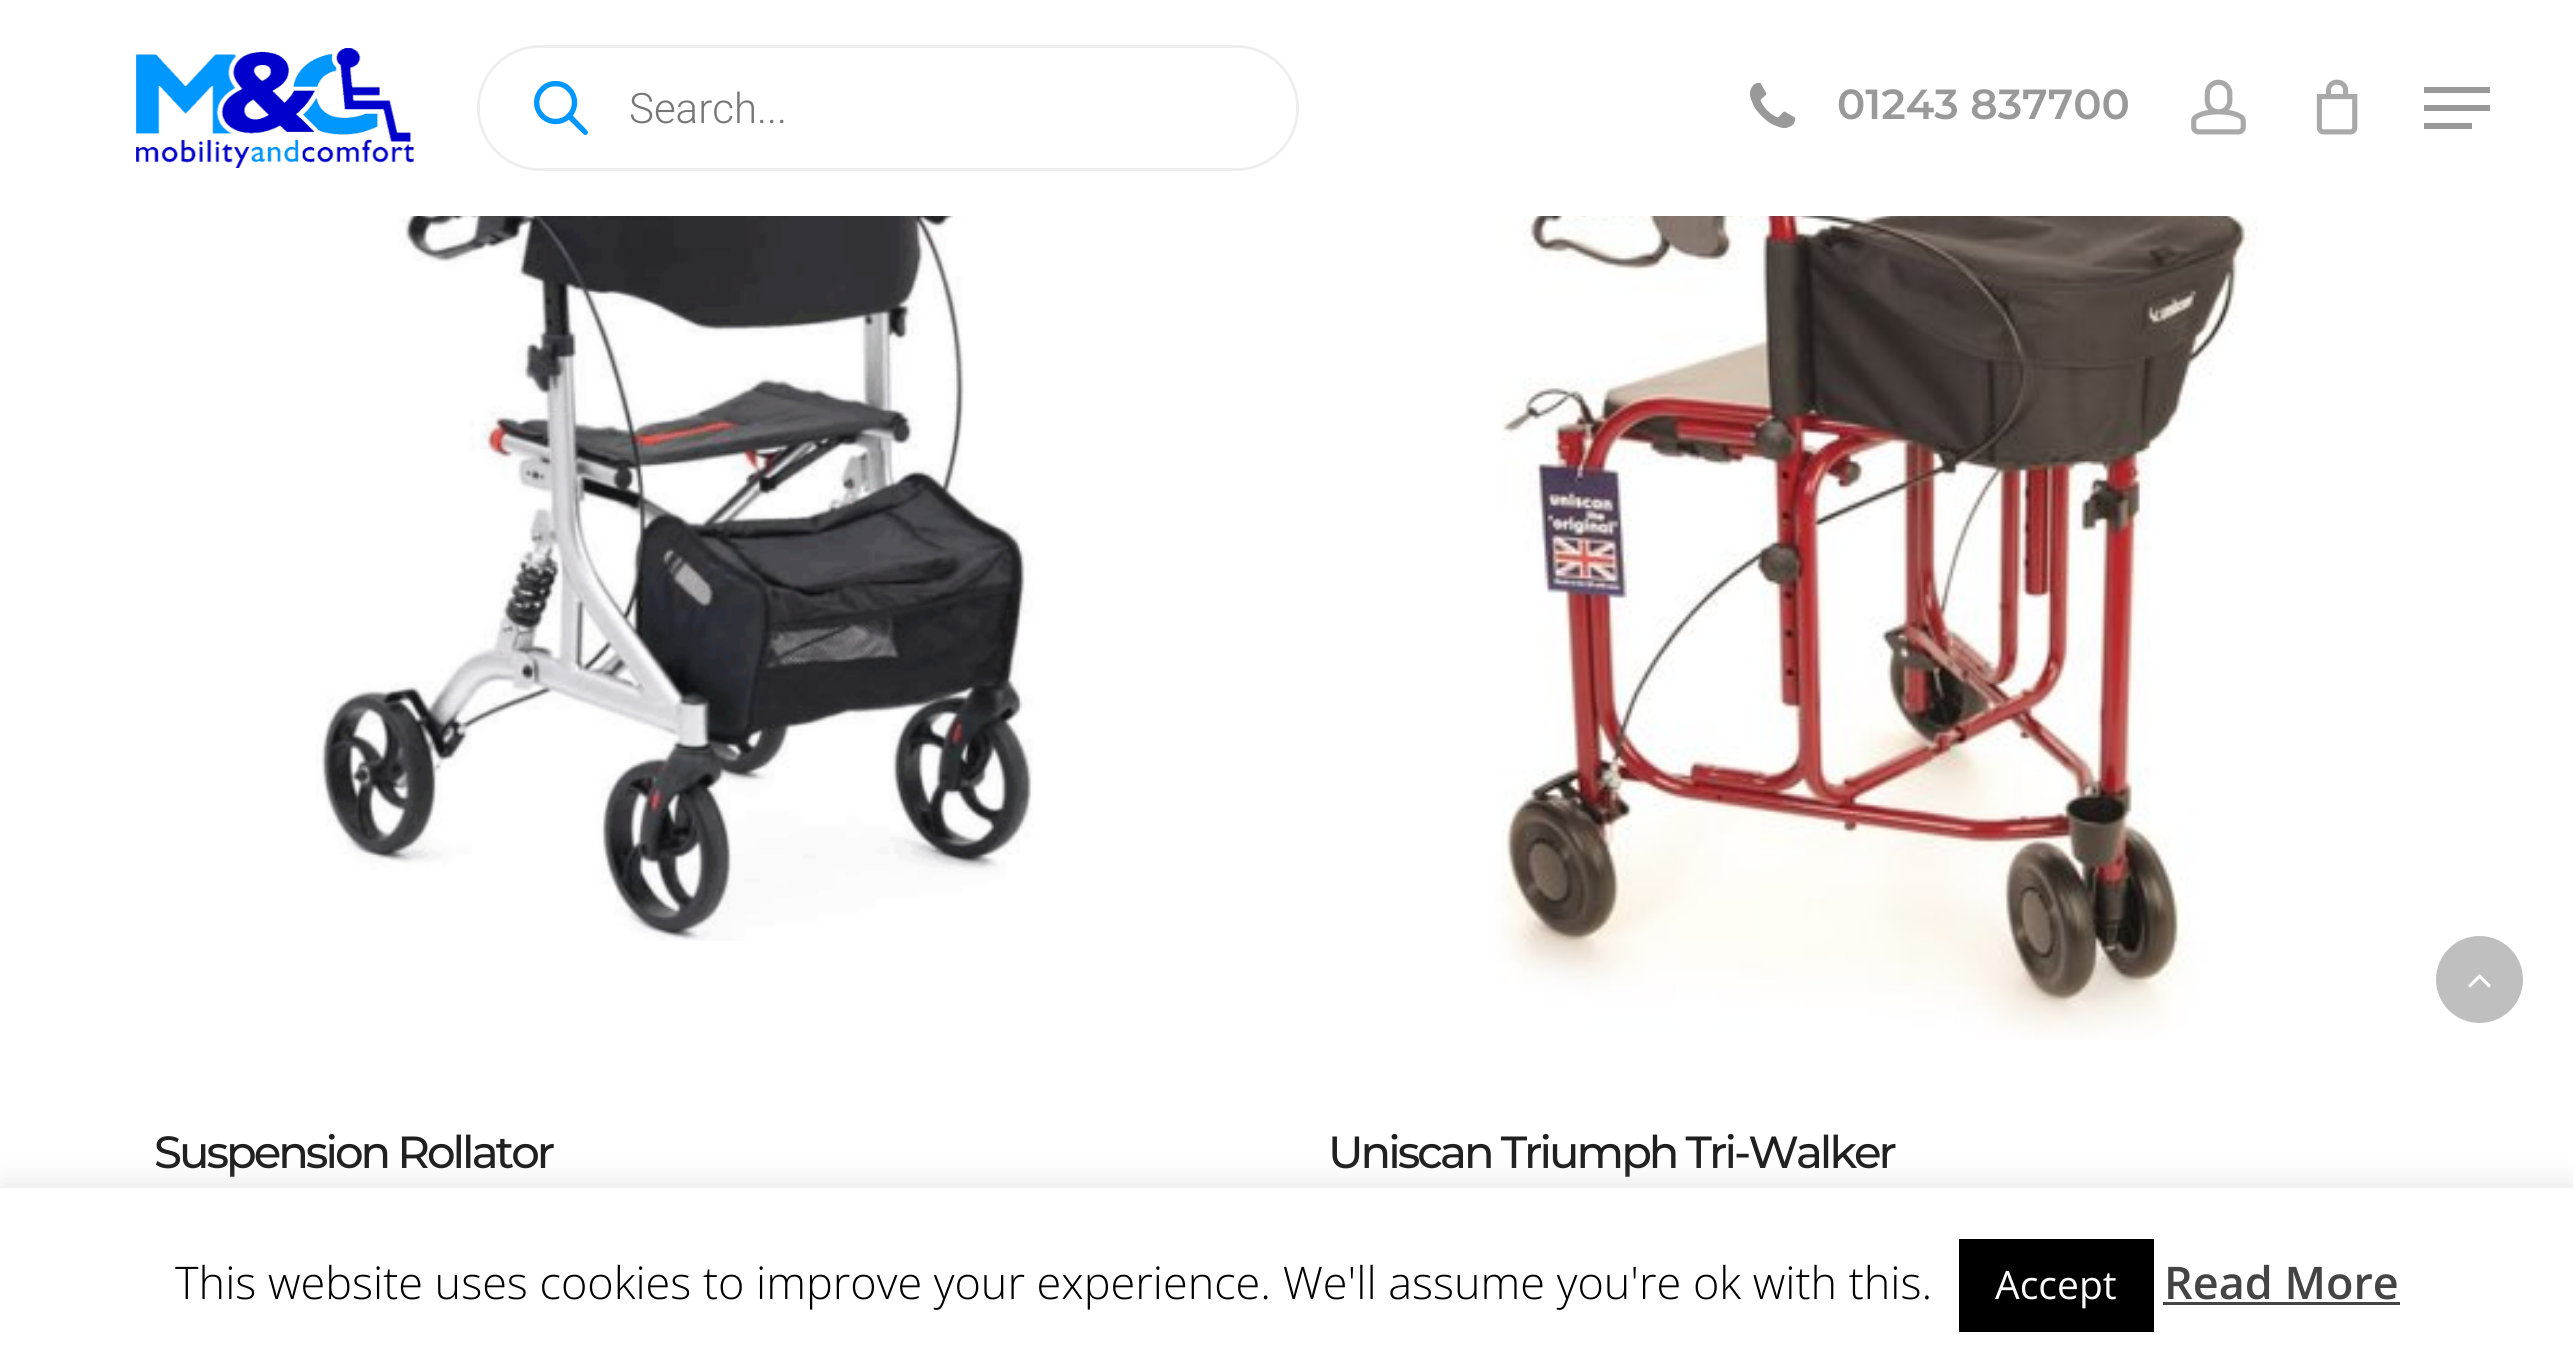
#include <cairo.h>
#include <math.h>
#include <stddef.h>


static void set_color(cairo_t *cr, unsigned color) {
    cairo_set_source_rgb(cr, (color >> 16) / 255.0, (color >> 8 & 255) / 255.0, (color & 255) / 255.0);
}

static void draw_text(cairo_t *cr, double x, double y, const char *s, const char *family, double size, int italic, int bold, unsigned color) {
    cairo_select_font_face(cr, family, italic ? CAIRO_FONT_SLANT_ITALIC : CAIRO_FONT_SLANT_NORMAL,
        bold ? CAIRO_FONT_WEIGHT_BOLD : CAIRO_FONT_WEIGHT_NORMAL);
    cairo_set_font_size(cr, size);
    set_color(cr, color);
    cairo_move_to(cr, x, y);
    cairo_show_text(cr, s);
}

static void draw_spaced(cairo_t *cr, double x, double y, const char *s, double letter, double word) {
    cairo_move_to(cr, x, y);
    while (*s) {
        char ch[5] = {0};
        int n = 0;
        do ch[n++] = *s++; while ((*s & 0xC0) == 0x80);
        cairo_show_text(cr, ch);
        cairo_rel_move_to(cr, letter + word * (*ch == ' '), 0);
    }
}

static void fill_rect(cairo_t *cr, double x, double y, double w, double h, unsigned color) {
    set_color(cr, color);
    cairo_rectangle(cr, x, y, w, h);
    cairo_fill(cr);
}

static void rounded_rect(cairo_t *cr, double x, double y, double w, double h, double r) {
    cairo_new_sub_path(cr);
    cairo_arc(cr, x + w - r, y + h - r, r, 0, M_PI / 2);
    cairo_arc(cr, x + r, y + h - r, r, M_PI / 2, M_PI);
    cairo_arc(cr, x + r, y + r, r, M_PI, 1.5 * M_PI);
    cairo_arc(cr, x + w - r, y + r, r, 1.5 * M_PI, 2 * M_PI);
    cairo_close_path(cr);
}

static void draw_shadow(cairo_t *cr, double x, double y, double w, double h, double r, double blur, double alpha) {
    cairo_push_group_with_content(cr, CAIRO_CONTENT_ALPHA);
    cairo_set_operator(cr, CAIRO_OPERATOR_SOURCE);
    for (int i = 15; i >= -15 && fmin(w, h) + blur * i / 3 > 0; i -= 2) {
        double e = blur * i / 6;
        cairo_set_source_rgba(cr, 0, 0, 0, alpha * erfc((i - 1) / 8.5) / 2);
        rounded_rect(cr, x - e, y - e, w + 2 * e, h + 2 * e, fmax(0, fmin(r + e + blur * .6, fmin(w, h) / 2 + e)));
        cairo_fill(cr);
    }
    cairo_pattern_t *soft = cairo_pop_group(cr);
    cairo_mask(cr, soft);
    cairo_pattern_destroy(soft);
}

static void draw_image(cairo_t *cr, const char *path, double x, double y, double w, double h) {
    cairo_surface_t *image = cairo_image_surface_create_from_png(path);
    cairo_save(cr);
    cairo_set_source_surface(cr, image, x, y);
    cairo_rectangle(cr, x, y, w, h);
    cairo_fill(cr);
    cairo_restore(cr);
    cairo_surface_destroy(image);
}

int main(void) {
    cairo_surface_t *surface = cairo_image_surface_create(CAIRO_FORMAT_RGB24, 2573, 1366);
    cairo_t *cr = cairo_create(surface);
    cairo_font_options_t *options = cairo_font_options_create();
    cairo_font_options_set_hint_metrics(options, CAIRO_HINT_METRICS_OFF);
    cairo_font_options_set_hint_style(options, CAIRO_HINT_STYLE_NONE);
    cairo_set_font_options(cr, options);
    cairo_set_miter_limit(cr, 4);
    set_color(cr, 0xFFFFFF);
    cairo_paint(cr);
    draw_image(cr, "assets/img1.png", 136, 48, 278, 120);
    rounded_rect(cr, 478.5, 46.5, 819, 123, 61.5);
    set_color(cr, 0xEEEEEE);
    cairo_set_line_width(cr, 3);
    cairo_stroke(cr);
    set_color(cr, 0xFFFFFF);
    rounded_rect(cr, 480, 48, 816, 120, 60);
    cairo_fill(cr);
    draw_image(cr, "assets/img2.png", 534, 81, 54, 54);
    draw_text(cr, 629, 123, "Search...", "Roboto Light", 42, 0, 0, 0x777777);
    draw_image(cr, "assets/img3.png", 1749, 82, 47, 47);
    draw_text(cr, 1837, 119, "01243 837700", "Montserrat SemiBold", 42, 0, 0, 0x999999);
    draw_image(cr, "assets/img4.png", 2191, 79, 55, 56);
    draw_image(cr, "assets/img5.png", 2316, 79, 42, 56);
    fill_rect(cr, 2424, 87, 66, 6, 0x999999);
    fill_rect(cr, 2424, 123, 48, 6, 0x999999);
    fill_rect(cr, 2424, 105, 66, 6, 0x999999);
    set_color(cr, 0xBFBFBF);
    cairo_arc(cr, 2479.5, 979.5, 43.5, 0, 2 * M_PI);
    cairo_fill(cr);
    draw_image(cr, "assets/img6.png", 2468, 974, 23, 14);
    draw_image(cr, "assets/img7.png", 316, 216, 718, 725);
    cairo_select_font_face(cr, "Montserrat Medium", CAIRO_FONT_SLANT_NORMAL, CAIRO_FONT_WEIGHT_NORMAL);
    cairo_set_font_size(cr, 45);
    set_color(cr, 0x1F1F1F);
    draw_spaced(cr, 154, 1168, "Suspension Rollator", -3, 0);
    draw_image(cr, "assets/img8.png", 1495, 216, 763, 824);
    draw_spaced(cr, 1328, 1168, "Uniscan Triumph Tri-Walker", -3, 0);
    set_color(cr, 0xACABAB);
    draw_shadow(cr, 0, 1185, 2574, 180, 0, 15, 0.3);
    fill_rect(cr, 0, 1188, 2573, 178, 0xFFFFFF);
    draw_text(cr, 175, 1299, "This website uses cookies to improve your experience. We'll assume you're ok with this.", "Open Sans Light", 45, 0, 0, 0x000000);
    fill_rect(cr, 1959, 1239, 195, 93, 0x000000);
    draw_text(cr, 1995, 1299, "Accept", "Open Sans", 39, 0, 0, 0xFFFFFF);
    draw_text(cr, 2164, 1299, "Read More", "Open Sans SemiBold", 45, 0, 0, 0x444444);
    fill_rect(cr, 2163, 1302, 237, 3, 0x444444);
    cairo_surface_write_to_png(surface, "output.png");
    cairo_font_options_destroy(options);
    cairo_destroy(cr);
    cairo_surface_destroy(surface);
    return 0;
}
